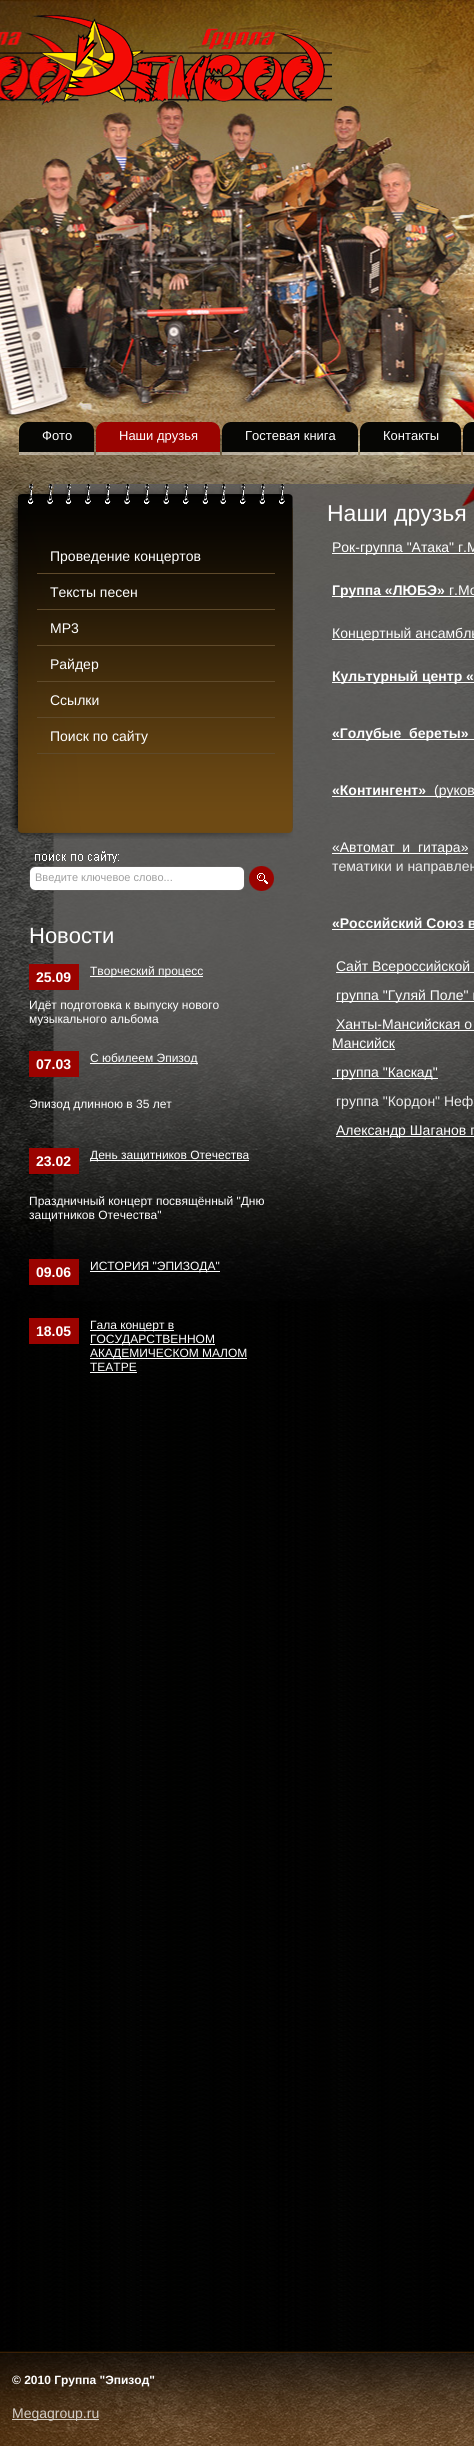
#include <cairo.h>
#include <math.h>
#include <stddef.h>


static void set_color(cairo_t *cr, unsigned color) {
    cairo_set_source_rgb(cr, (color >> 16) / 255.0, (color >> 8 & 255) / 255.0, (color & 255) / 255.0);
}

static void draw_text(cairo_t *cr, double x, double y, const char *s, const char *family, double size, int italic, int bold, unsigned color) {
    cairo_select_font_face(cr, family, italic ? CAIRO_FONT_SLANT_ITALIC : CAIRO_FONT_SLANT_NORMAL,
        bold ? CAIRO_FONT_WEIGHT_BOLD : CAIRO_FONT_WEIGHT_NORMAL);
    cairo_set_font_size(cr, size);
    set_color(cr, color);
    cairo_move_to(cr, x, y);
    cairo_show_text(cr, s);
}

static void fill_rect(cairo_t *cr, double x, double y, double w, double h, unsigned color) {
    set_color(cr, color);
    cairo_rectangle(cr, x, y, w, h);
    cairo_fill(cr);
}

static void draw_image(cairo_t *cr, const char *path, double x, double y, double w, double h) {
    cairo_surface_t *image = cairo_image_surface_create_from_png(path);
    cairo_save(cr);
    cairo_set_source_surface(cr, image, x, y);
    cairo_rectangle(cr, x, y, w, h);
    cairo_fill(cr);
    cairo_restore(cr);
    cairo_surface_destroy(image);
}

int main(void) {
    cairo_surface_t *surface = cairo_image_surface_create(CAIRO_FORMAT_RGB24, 474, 2446);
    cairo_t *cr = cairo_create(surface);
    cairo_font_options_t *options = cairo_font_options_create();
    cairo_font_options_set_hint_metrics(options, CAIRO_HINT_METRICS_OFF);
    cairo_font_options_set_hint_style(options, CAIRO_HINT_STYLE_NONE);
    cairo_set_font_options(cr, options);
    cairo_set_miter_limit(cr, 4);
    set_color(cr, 0xFFFFFF);
    cairo_paint(cr);
    draw_image(cr, "assets/img1.png", 0, 1301, 474, 1050);
    draw_image(cr, "assets/img2.png", 0, 0, 474, 1301);
    draw_image(cr, "assets/img3.png", 32, 15, 300, 90);
    draw_image(cr, "assets/img4.png", 19, 422, 11, 33);
    draw_image(cr, "assets/img5.png", 84, 422, 10, 33);
    draw_image(cr, "assets/img6.png", 30, 422, 54, 33);
    draw_text(cr, 42, 440, "Фото", "Liberation Sans", 13, 0, 0, 0xFFFFFF);
    draw_image(cr, "assets/img7.png", 96, 422, 11, 33);
    draw_image(cr, "assets/img8.png", 210, 422, 10, 33);
    draw_image(cr, "assets/img9.png", 107, 422, 103, 33);
    draw_text(cr, 119, 440, "Наши друзья", "Liberation Sans", 13, 0, 0, 0xFFFFFF);
    draw_image(cr, "assets/img10.png", 222, 422, 11, 33);
    draw_image(cr, "assets/img11.png", 348, 422, 10, 33);
    draw_image(cr, "assets/img12.png", 233, 422, 115, 33);
    draw_text(cr, 245, 440, "Гостевая книга", "Liberation Sans", 13, 0, 0, 0xFFFFFF);
    draw_image(cr, "assets/img13.png", 360, 422, 11, 33);
    draw_image(cr, "assets/img14.png", 451, 422, 10, 33);
    draw_image(cr, "assets/img15.png", 371, 422, 80, 33);
    draw_text(cr, 383, 440, "Контакты", "Liberation Sans", 13, 0, 0, 0xFFFFFF);
    draw_image(cr, "assets/img16.png", 463, 422, 11, 33);
    draw_image(cr, "assets/img17.png", 10, 484, 283, 24);
    draw_image(cr, "assets/img18.png", 10, 508, 283, 320);
    draw_image(cr, "assets/img19.png", 10, 508, 283, 320);
    fill_rect(cr, 37, 573, 238, 1, 0x5F4A2B);
    draw_text(cr, 50, 561, "Проведение концертов", "Liberation Sans", 14, 0, 0, 0xFFFFFF);
    fill_rect(cr, 37, 609, 238, 1, 0x5F4A2B);
    draw_text(cr, 50, 597, "Тексты песен", "Liberation Sans", 14, 0, 0, 0xFFFFFF);
    fill_rect(cr, 37, 645, 238, 1, 0x5F4A2B);
    draw_text(cr, 50, 633, "MP3", "Liberation Sans", 14, 0, 0, 0xFFFFFF);
    fill_rect(cr, 37, 681, 238, 1, 0x5F4A2B);
    draw_text(cr, 50, 669, "Райдер", "Liberation Sans", 14, 0, 0, 0xFFFFFF);
    fill_rect(cr, 37, 717, 238, 1, 0x5F4A2B);
    draw_text(cr, 50, 705, "Ссылки", "Liberation Sans", 14, 0, 0, 0xFFFFFF);
    fill_rect(cr, 37, 753, 238, 1, 0x5F4A2B);
    draw_text(cr, 50, 741, "Поиск по сайту", "Liberation Sans", 14, 0, 0, 0xFFFFFF);
    draw_image(cr, "assets/img20.png", 11, 828, 282, 11);
    draw_image(cr, "assets/img21.png", 29, 851, 245, 40);
    cairo_save(cr);
    cairo_rectangle(cr, 35, 871, 207, 12);
    cairo_clip(cr);
    draw_text(cr, 35, 881, "Введите ключевое слово...", "Liberation Sans", 11, 0, 0, 0x9F9F9F);
    cairo_restore(cr);
    draw_text(cr, 29, 943, "Новости", "Liberation Sans", 22, 0, 0, 0xFFFFFF);
    fill_rect(cr, 29, 964, 50, 26, 0x9B0300);
    draw_text(cr, 36, 982, "25.09", "Liberation Sans", 14, 0, 1, 0xFFFFFF);
    fill_rect(cr, 90, 976, 113, 1, 0xFFFFFF);
    draw_text(cr, 90, 975, "Творческий процесс", "Liberation Sans", 12, 0, 0, 0xFFFFFF);
    draw_text(cr, 29, 1009, "Идёт подготовка к выпуску нового", "Liberation Sans", 12, 0, 0, 0xFFFFFF);
    draw_text(cr, 29, 1023, "музыкального альбома", "Liberation Sans", 12, 0, 0, 0xFFFFFF);
    fill_rect(cr, 29, 1051, 50, 26, 0x9B0300);
    draw_text(cr, 36, 1069, "07.03", "Liberation Sans", 14, 0, 1, 0xFFFFFF);
    fill_rect(cr, 90, 1063, 108, 1, 0xFFFFFF);
    draw_text(cr, 90, 1062, "С юбилеем Эпизод", "Liberation Sans", 12, 0, 0, 0xFFFFFF);
    draw_text(cr, 29, 1108, "Эпизод длинною в 35 лет", "Liberation Sans", 12, 0, 0, 0xFFFFFF);
    fill_rect(cr, 29, 1148, 50, 26, 0x9B0300);
    draw_text(cr, 36, 1166, "23.02", "Liberation Sans", 14, 0, 1, 0xFFFFFF);
    fill_rect(cr, 90, 1160, 159, 1, 0xFFFFFF);
    draw_text(cr, 90, 1159, "День защитников Отечества", "Liberation Sans", 12, 0, 0, 0xFFFFFF);
    draw_text(cr, 29, 1205, "Праздничный концерт посвящённый \"Дню", "Liberation Sans", 12, 0, 0, 0xFFFFFF);
    draw_text(cr, 29, 1219, "защитников Отечества\"", "Liberation Sans", 12, 0, 0, 0xFFFFFF);
    fill_rect(cr, 29, 1259, 50, 26, 0x9B0300);
    draw_text(cr, 36, 1277, "09.06", "Liberation Sans", 14, 0, 1, 0xFFFFFF);
    fill_rect(cr, 90, 1271, 130, 1, 0xFFFFFF);
    draw_text(cr, 90, 1270, "ИСТОРИЯ \"ЭПИЗОДА\"", "Liberation Sans", 12, 0, 0, 0xFFFFFF);
    fill_rect(cr, 29, 1318, 50, 26, 0x9B0300);
    draw_text(cr, 36, 1336, "18.05", "Liberation Sans", 14, 0, 1, 0xFFFFFF);
    fill_rect(cr, 90, 1330, 84, 1, 0xFFFFFF);
    draw_text(cr, 90, 1329, "Гала концерт в", "Liberation Sans", 12, 0, 0, 0xFFFFFF);
    fill_rect(cr, 90, 1344, 125, 1, 0xFFFFFF);
    draw_text(cr, 90, 1343, "ГОСУДАРСТВЕННОМ", "Liberation Sans", 12, 0, 0, 0xFFFFFF);
    fill_rect(cr, 90, 1358, 157, 1, 0xFFFFFF);
    draw_text(cr, 90, 1357, "АКАДЕМИЧЕСКОМ МАЛОМ", "Liberation Sans", 12, 0, 0, 0xFFFFFF);
    draw_text(cr, 90, 1371, "ТЕАТРЕ", "Liberation Sans", 12, 0, 0, 0xFFFFFF);
    fill_rect(cr, 90, 1372, 47, 1, 0xFFFFFF);
    draw_text(cr, 327, 521, "Наши друзья", "Liberation Sans", 23, 0, 0, 0xFFFFFF);
    fill_rect(cr, 332, 553, 142, 1, 0xFFFFFF);
    draw_text(cr, 332, 552, "Рок-группа \"Атака\" г.М", "Liberation Sans", 14, 0, 0, 0xFFFFFF);
    fill_rect(cr, 332, 596, 142, 1, 0xFFFFFF);
    draw_text(cr, 332, 595, "Группа «ЛЮБЭ»", "Liberation Sans", 14, 0, 1, 0xFFFFFF);
    draw_text(cr, 449, 595, "г.Мо", "Liberation Sans", 14, 0, 0, 0xFFFFFF);
    fill_rect(cr, 332, 639, 142, 1, 0xFFFFFF);
    draw_text(cr, 332, 638, "Концертный ансамбль", "Liberation Sans", 14, 0, 0, 0xFFFFFF);
    fill_rect(cr, 332, 682, 142, 1, 0xFFFFFF);
    draw_text(cr, 332, 681, "Культурный центр «", "Liberation Sans", 14, 0, 1, 0xFFFFFF);
    fill_rect(cr, 332, 739, 142, 1, 0xFFFFFF);
    draw_text(cr, 332, 738, "«Голубые  береты»", "Liberation Sans", 14, 0, 1, 0xFFFFFF);
    draw_text(cr, 332, 795, "«Контингент»", "Liberation Sans", 14, 0, 1, 0xFFFFFF);
    fill_rect(cr, 332, 796, 142, 1, 0xFFFFFF);
    draw_text(cr, 434, 795, "(руков", "Liberation Sans", 14, 0, 0, 0xFFFFFF);
    fill_rect(cr, 332, 853, 136, 1, 0xFFFFFF);
    draw_text(cr, 332, 852, "«Автомат  и  гитара»", "Liberation Sans", 14, 0, 0, 0xFFFFFF);
    draw_text(cr, 332, 871, "тематики и направлен", "Liberation Sans", 14, 0, 0, 0xEDEDED);
    draw_text(cr, 332, 928, "«Российский Союз в", "Liberation Sans", 14, 0, 1, 0xFFFFFF);
    fill_rect(cr, 332, 929, 142, 1, 0xFFFFFF);
    fill_rect(cr, 336, 972, 138, 1, 0xFFFFFF);
    draw_text(cr, 336, 971, "Сайт Всероссийской", "Liberation Sans", 14, 0, 0, 0xFFFFFF);
    fill_rect(cr, 336, 1001, 138, 1, 0xFFFFFF);
    draw_text(cr, 336, 1000, "группа \"Гуляй Поле\" г", "Liberation Sans", 14, 0, 0, 0xFFFFFF);
    draw_text(cr, 336, 1029, "Ханты-Мансийская о", "Liberation Sans", 14, 0, 0, 0xFFFFFF);
    fill_rect(cr, 336, 1030, 138, 1, 0xFFFFFF);
    draw_text(cr, 332, 1048, "Мансийск", "Liberation Sans", 14, 0, 0, 0xFFFFFF);
    fill_rect(cr, 332, 1049, 63, 1, 0xFFFFFF);
    fill_rect(cr, 332, 1078, 106, 1, 0xFFFFFF);
    draw_text(cr, 336, 1077, "группа \"Каскад\"", "Liberation Sans", 14, 0, 0, 0xFFFFFF);
    draw_text(cr, 336, 1106, "группа \"Кордон\" Неф", "Liberation Sans", 14, 0, 0, 0xEDEDED);
    fill_rect(cr, 336, 1136, 138, 1, 0xFFFFFF);
    draw_text(cr, 336, 1135, "Александр Шаганов г", "Liberation Sans", 14, 0, 0, 0xFFFFFF);
    draw_image(cr, "assets/img22.png", 0, 2351, 474, 95);
    draw_text(cr, 12, 2384, "© 2010 Группа \"Эпизод\"", "Liberation Sans", 12, 0, 1, 0xFFFFFF);
    fill_rect(cr, 12, 2419, 87, 1, 0xD4CEC8);
    draw_text(cr, 12, 2418, "Megagroup.ru", "Liberation Sans", 14, 0, 0, 0xD4CEC8);
    cairo_surface_write_to_png(surface, "output.png");
    cairo_font_options_destroy(options);
    cairo_destroy(cr);
    cairo_surface_destroy(surface);
    return 0;
}
